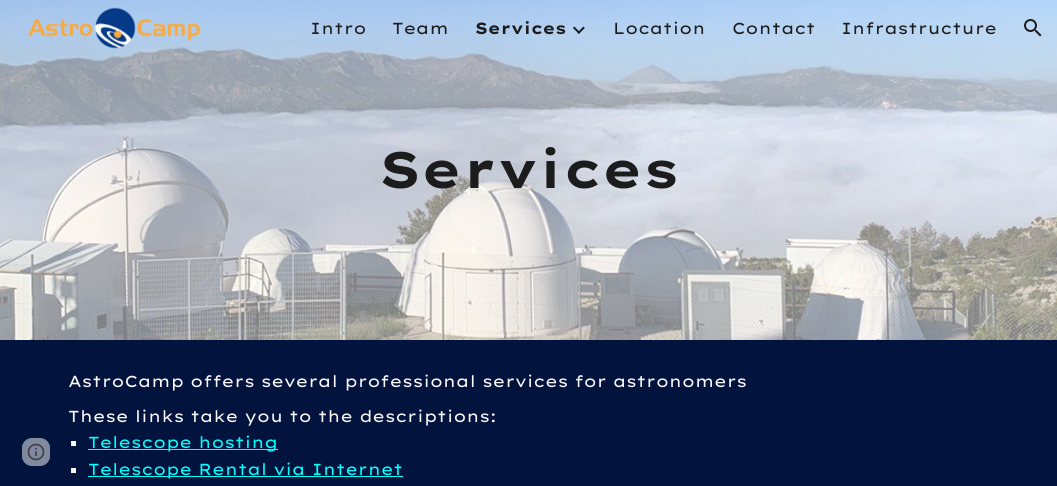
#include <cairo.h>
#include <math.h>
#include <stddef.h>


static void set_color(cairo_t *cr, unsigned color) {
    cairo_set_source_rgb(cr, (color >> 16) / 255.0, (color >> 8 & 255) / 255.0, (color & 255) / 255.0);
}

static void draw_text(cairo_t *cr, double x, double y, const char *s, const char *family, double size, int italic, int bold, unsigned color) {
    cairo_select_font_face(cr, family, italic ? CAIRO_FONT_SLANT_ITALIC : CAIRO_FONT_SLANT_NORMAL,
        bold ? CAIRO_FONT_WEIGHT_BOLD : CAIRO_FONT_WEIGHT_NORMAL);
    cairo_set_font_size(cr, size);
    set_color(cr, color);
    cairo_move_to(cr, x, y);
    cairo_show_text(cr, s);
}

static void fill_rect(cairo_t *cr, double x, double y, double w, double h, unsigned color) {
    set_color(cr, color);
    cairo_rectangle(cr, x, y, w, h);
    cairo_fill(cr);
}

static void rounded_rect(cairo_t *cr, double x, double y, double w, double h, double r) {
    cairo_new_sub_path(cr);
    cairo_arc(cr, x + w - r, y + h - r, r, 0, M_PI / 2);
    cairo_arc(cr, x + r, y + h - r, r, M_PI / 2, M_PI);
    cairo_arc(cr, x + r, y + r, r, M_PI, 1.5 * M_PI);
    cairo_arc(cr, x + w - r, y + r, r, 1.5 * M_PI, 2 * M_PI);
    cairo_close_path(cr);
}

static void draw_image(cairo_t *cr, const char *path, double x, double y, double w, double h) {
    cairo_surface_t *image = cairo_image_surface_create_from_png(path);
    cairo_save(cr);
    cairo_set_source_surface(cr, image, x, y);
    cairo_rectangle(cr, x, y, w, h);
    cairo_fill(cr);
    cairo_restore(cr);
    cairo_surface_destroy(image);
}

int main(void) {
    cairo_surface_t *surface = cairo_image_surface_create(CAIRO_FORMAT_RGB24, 1057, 486);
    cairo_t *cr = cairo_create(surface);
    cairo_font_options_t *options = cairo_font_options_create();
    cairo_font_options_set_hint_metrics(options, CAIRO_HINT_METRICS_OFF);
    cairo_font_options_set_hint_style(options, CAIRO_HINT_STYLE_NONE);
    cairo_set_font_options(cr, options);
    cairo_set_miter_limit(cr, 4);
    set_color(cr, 0x02133E);
    cairo_paint(cr);
    draw_image(cr, "assets/img5.png", 0, 0, 1057, 340);
    draw_image(cr, "assets/img1.png", 28, 7, 173, 42);
    draw_text(cr, 310, 34, "Intro", "Lexend Giga", 16, 0, 0, 0x1C1C1C);
    draw_text(cr, 392, 34, "Team", "Lexend Giga", 16, 0, 0, 0x1C1C1C);
    draw_text(cr, 475, 34, "Services", "Lexend Giga", 16, 0, 1, 0x1C1C1C);
    draw_image(cr, "assets/img2.png", 573, 26, 12, 8);
    draw_text(cr, 613, 34, "Location", "Lexend Giga", 16, 0, 0, 0x1C1C1C);
    draw_text(cr, 732, 34, "Contact", "Lexend Giga", 16, 0, 0, 0x1C1C1C);
    draw_text(cr, 841, 34, "Infrastructure", "Lexend Giga", 16, 0, 0, 0x1C1C1C);
    draw_image(cr, "assets/img3.png", 1024, 19, 18, 18);
    set_color(cr, 0x81899F);
    rounded_rect(cr, 22, 438, 28, 28, 10);
    cairo_fill(cr);
    draw_image(cr, "assets/img4.png", 27, 443, 18, 18);
    draw_text(cr, 379, 188, "Services", "Lexend Mega", 50.75, 0, 1, 0x1C1C1C);
    draw_text(cr, 68, 387, "AstroCamp offers several professional services for astronomers", "Lexend Giga", 16, 0, 0, 0xF9F9F9);
    draw_text(cr, 68, 422, "These links take you to the descriptions:", "Lexend Giga", 16, 0, 0, 0xF9F9F9);
    fill_rect(cr, 71, 441, 5, 5, 0xF9F9F9);
    fill_rect(cr, 88, 449, 190, 1, 0x00FFFF);
    draw_text(cr, 88, 448, "Telescope hosting", "Lexend Giga", 16, 0, 0, 0x00FFFF);
    fill_rect(cr, 71, 468, 5, 5, 0xF9F9F9);
    fill_rect(cr, 88, 476, 315, 1, 0x00FFFF);
    draw_text(cr, 88, 475, "Telescope Rental via Internet", "Lexend Giga", 16, 0, 0, 0x00FFFF);
    cairo_surface_write_to_png(surface, "output.png");
    cairo_font_options_destroy(options);
    cairo_destroy(cr);
    cairo_surface_destroy(surface);
    return 0;
}
